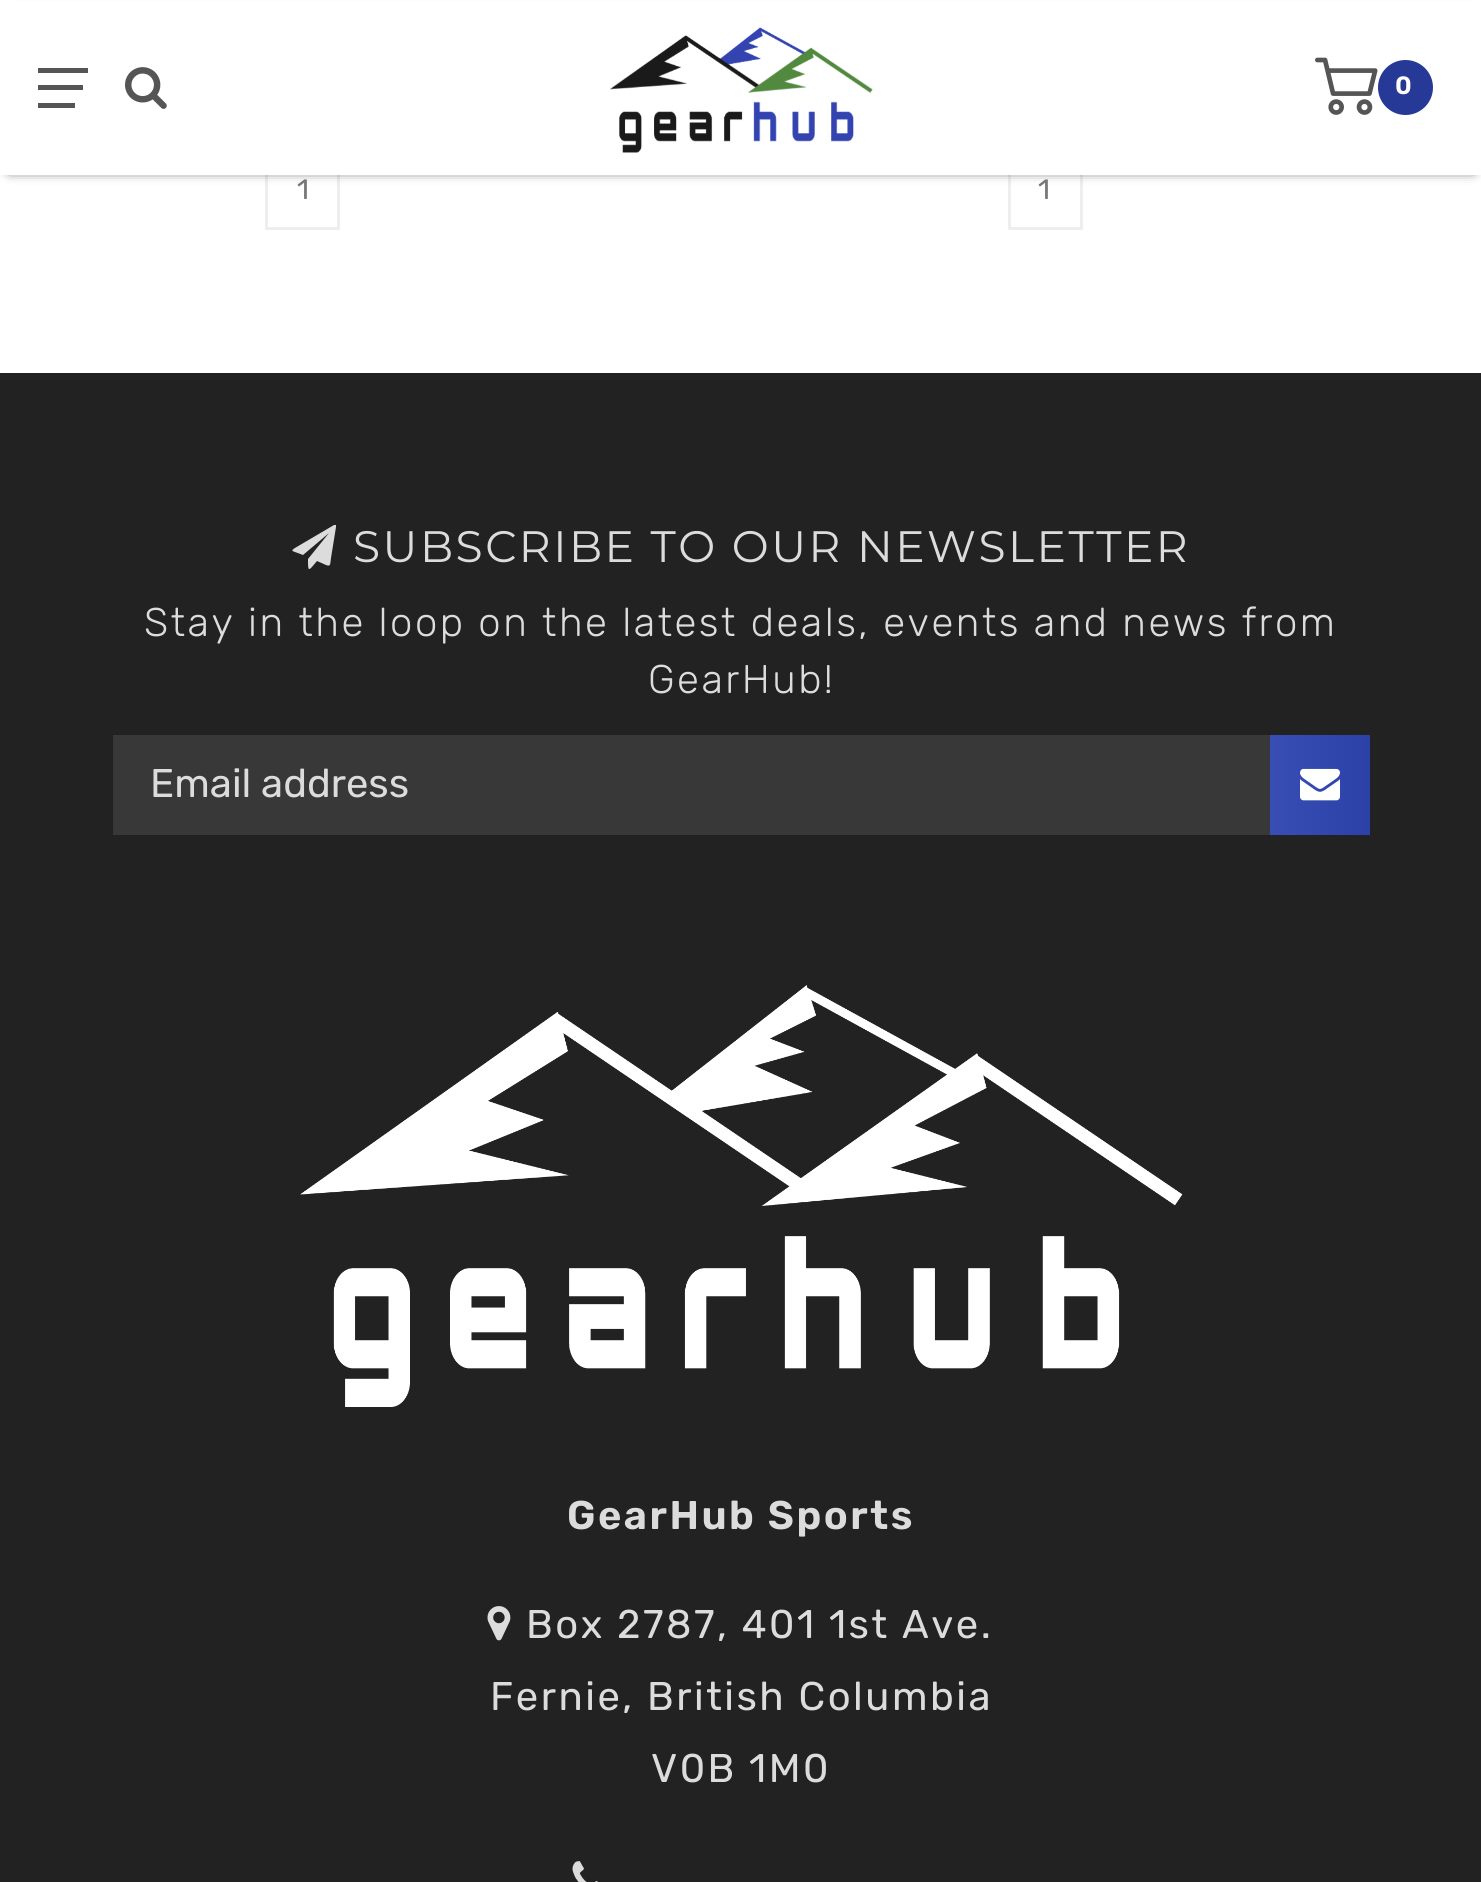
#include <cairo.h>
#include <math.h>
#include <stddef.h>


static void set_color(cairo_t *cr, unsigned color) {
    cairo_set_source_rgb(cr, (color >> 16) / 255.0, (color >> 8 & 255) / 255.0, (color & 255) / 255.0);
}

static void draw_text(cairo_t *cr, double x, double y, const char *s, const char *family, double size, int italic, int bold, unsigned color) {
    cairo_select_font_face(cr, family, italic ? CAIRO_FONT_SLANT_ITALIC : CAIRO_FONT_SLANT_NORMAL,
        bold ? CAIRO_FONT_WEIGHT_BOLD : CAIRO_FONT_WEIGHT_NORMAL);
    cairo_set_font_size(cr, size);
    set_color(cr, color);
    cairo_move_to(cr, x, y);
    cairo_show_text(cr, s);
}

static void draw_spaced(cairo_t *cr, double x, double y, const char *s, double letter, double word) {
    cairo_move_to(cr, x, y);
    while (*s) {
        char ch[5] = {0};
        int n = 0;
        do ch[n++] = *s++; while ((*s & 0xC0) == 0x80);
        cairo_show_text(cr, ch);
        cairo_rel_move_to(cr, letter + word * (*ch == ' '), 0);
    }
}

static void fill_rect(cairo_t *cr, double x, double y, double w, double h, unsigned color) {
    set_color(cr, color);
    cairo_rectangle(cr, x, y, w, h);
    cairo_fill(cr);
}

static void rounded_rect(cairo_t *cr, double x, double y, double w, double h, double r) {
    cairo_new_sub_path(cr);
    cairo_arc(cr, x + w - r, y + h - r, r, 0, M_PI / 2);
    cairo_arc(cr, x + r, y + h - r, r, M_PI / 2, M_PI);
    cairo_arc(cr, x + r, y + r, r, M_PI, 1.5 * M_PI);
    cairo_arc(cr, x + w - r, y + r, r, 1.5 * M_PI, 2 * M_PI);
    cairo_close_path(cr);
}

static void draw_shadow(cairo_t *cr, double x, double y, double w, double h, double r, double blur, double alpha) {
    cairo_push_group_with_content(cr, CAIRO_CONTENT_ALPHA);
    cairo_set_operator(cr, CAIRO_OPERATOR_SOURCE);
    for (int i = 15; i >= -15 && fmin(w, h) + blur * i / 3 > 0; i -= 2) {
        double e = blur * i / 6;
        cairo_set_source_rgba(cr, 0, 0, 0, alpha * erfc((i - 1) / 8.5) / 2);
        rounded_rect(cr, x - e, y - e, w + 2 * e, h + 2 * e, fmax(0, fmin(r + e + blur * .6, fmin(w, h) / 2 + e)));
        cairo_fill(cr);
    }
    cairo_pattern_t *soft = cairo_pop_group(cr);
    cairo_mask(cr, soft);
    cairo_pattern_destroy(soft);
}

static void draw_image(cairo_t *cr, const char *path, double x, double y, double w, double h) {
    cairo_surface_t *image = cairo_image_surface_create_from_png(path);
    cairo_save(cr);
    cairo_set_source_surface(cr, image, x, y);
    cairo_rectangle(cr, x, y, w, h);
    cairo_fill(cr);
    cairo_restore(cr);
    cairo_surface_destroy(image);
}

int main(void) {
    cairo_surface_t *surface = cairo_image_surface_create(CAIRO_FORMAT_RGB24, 1481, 1882);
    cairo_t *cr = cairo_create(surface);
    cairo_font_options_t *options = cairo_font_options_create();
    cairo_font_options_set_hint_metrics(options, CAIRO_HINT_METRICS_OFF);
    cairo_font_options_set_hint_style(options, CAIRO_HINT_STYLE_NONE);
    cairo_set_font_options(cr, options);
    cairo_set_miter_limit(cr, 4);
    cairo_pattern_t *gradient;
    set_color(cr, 0xFFFFFF);
    cairo_paint(cr);
    cairo_rectangle(cr, 266.5, 156.5, 72, 72);
    set_color(cr, 0xEEEEEE);
    cairo_set_line_width(cr, 3);
    cairo_stroke(cr);
    cairo_rectangle(cr, 1009.5, 156.5, 72, 72);
    cairo_stroke(cr);
    set_color(cr, 0x000000);
    draw_shadow(cr, 10, 15, 1463, 155, 0, 6, 1);
    fill_rect(cr, 0, 1, 1481, 174, 0xFFFFFF);
    fill_rect(cr, 38, 68, 50, 5, 0x555555);
    fill_rect(cr, 38, 85, 45, 5, 0x555555);
    fill_rect(cr, 38, 103, 37, 5, 0x555555);
    draw_image(cr, "assets/img1.png", 125, 67, 42, 42);
    draw_image(cr, "assets/img2.png", 610, 27, 263, 126);
    draw_image(cr, "assets/img3.png", 1315, 57, 63, 58);
    set_color(cr, 0x263997);
    cairo_arc(cr, 1405.5, 87.5, 27.5, 0, 2 * M_PI);
    cairo_fill(cr);
    cairo_select_font_face(cr, "Rubik SemiBold", CAIRO_FONT_SLANT_NORMAL, CAIRO_FONT_WEIGHT_NORMAL);
    cairo_set_font_size(cr, 25);
    set_color(cr, 0xFFFFFF);
    draw_spaced(cr, 1395, 94, "0", 2.5, 0);
    draw_text(cr, 297, 199, "1", "Rubik", 28, 0, 0, 0x777777);
    draw_text(cr, 1038, 199, "1", "Rubik", 28, 0, 0, 0x777777);
    fill_rect(cr, 0, 373, 1481, 1509, 0x222222);
    set_color(cr, 0xDCDCDC);
    cairo_new_path(cr);
    cairo_move_to(cr, 336, 525);
    cairo_line_to(cr, 336, 527);
    cairo_line_to(cr, 331, 558);
    cairo_curve_to(cr, 330, 564, 331, 567, 326, 565);
    cairo_line_to(cr, 317, 561);
    cairo_curve_to(cr, 308, 572, 308, 572, 308, 559);
    cairo_line_to(cr, 329, 533);
    cairo_line_to(cr, 303, 555);
    cairo_curve_to(cr, 291, 550, 288, 552, 300, 545);
    cairo_line_to(cr, 334, 525);
    cairo_close_path(cr);
    cairo_fill(cr);
    cairo_select_font_face(cr, "Montserrat", CAIRO_FONT_SLANT_NORMAL, CAIRO_FONT_WEIGHT_NORMAL);
    cairo_set_font_size(cr, 44);
    draw_spaced(cr, 353, 562, "SUBSCRIBE TO OUR NEWSLETTER", 2.5, 0);
    cairo_select_font_face(cr, "Rubik Light", CAIRO_FONT_SLANT_NORMAL, CAIRO_FONT_WEIGHT_NORMAL);
    cairo_set_font_size(cr, 40);
    draw_spaced(cr, 144, 636, "Stay in the loop on the latest deals, events and news from", 2.5, 0);
    draw_spaced(cr, 648, 693, "GearHub!", 2.5, 0);
    fill_rect(cr, 113, 735, 1157, 100, 0x383838);
    draw_text(cr, 150, 797, "Email address", "Rubik", 40, 0, 0, 0xDCDCDC);
    gradient = cairo_pattern_create_linear(1270, 785, 1370, 785);
    cairo_pattern_add_color_stop_rgba(gradient, 0, 0.22, 0.306, 0.706, 1);
    cairo_pattern_add_color_stop_rgba(gradient, 1, 0.169, 0.255, 0.659, 1);
    cairo_set_source(cr, gradient);
    cairo_pattern_destroy(gradient);
    cairo_rectangle(cr, 1270, 735, 100, 100);
    cairo_fill(cr);
    draw_image(cr, "assets/img4.png", 1300, 768, 40, 33);
    draw_image(cr, "assets/img5.png", 300, 985, 883, 422);
    cairo_select_font_face(cr, "Rubik SemiBold", CAIRO_FONT_SLANT_NORMAL, CAIRO_FONT_WEIGHT_NORMAL);
    set_color(cr, 0xDCDCDC);
    draw_spaced(cr, 567, 1529, "GearHub Sports", 2.5, 0);
    draw_image(cr, "assets/img6.png", 487, 1606, 24, 35);
    cairo_select_font_face(cr, "Rubik", CAIRO_FONT_SLANT_NORMAL, CAIRO_FONT_WEIGHT_NORMAL);
    draw_spaced(cr, 526, 1638, "Box 2787, 401 1st Ave.", 2.5, 0);
    draw_spaced(cr, 490, 1710, "Fernie, British Columbia", 2.5, 0);
    draw_spaced(cr, 651, 1782, "V0B 1M0", 2.5, 0);
    draw_image(cr, "assets/img7.png", 572, 1861, 26, 21);
    cairo_surface_write_to_png(surface, "output.png");
    cairo_font_options_destroy(options);
    cairo_destroy(cr);
    cairo_surface_destroy(surface);
    return 0;
}
